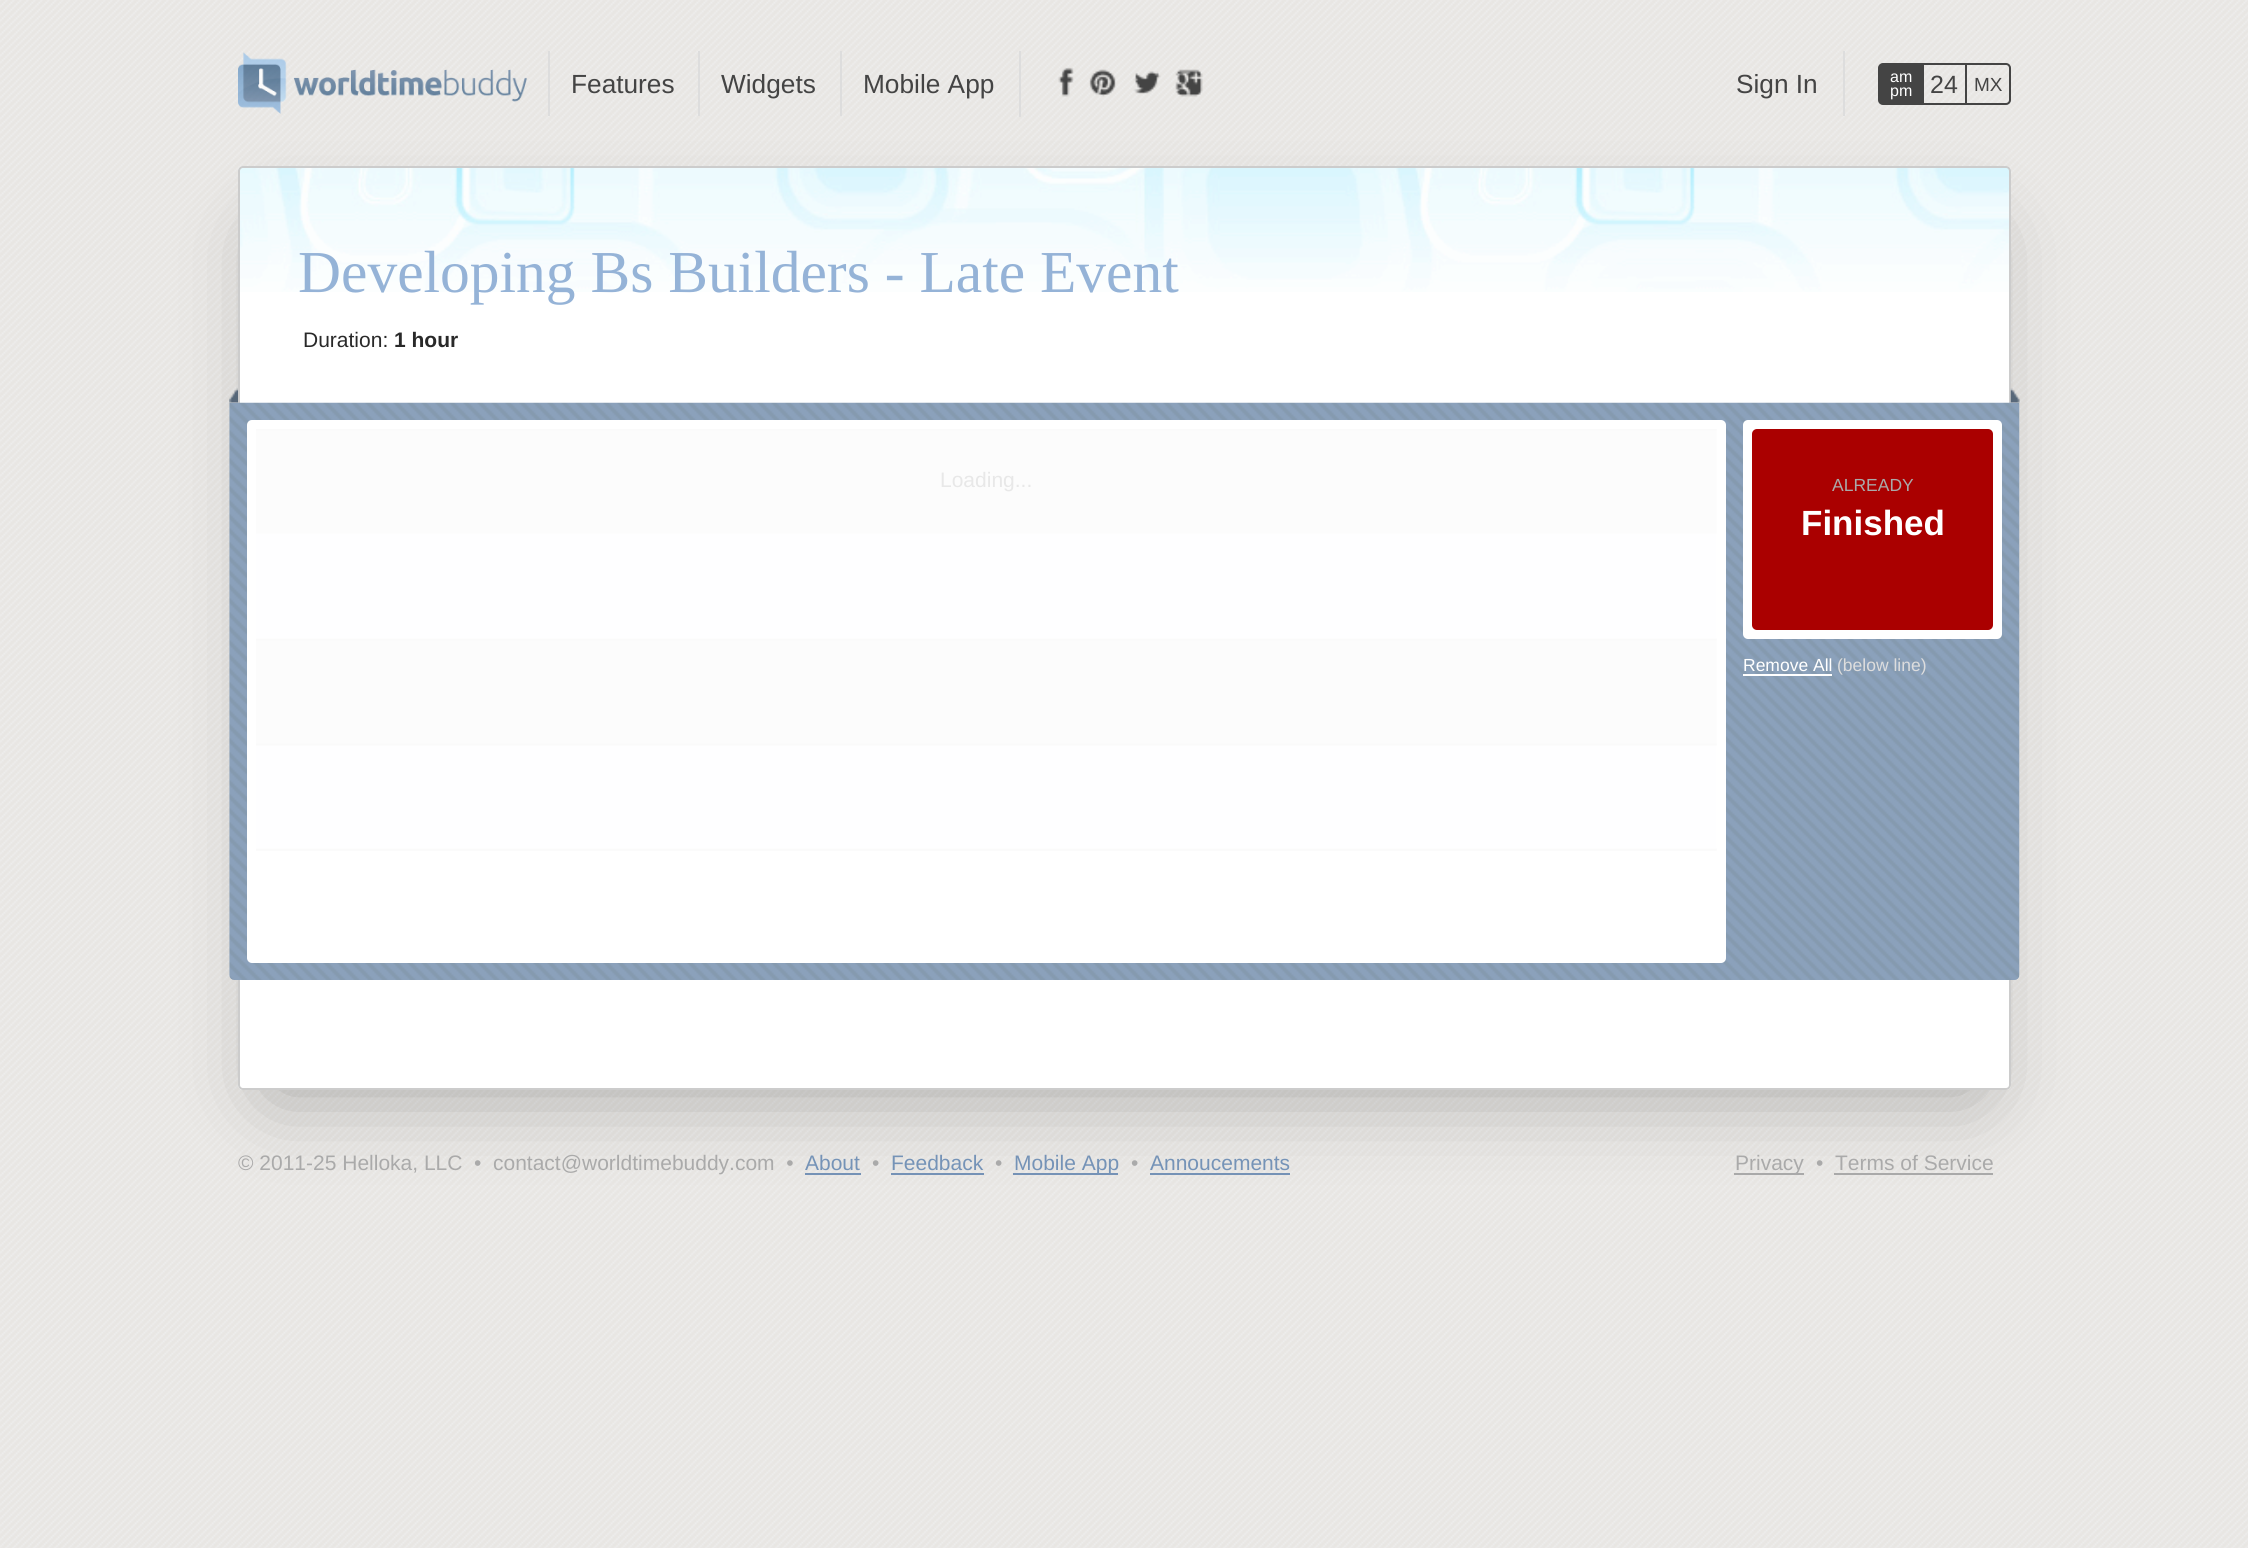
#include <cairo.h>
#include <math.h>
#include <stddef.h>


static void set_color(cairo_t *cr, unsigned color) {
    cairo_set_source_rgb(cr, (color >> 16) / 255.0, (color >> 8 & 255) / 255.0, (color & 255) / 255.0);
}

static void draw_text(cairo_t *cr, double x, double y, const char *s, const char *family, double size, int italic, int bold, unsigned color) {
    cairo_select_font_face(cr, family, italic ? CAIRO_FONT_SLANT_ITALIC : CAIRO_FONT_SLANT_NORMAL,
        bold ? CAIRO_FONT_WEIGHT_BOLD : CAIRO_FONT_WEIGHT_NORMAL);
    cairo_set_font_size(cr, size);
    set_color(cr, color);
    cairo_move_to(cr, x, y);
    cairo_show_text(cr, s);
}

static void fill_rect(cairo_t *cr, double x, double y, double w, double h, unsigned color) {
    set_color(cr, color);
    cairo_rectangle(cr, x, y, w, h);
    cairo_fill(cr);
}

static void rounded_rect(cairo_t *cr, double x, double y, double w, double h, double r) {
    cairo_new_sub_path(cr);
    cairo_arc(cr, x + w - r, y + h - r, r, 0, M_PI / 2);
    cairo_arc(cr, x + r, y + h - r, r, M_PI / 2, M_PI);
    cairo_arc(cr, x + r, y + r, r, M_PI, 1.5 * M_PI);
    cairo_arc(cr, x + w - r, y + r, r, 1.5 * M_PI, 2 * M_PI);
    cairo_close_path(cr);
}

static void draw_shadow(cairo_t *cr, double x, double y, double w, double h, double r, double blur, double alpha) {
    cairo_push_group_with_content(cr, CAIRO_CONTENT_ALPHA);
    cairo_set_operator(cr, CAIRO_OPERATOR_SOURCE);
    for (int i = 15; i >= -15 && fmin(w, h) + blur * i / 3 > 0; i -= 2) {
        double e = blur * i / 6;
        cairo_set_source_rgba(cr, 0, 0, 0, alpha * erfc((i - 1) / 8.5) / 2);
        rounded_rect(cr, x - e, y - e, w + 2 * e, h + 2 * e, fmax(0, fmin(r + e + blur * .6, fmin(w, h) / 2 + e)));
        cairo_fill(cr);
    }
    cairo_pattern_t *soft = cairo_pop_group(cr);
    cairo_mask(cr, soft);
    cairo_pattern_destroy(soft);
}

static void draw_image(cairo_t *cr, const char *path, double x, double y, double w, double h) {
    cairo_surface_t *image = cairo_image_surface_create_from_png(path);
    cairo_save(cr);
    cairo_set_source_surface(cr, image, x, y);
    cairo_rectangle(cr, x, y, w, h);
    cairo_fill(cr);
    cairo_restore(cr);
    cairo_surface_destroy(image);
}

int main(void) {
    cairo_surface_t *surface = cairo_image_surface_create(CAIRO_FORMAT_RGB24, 2248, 1548);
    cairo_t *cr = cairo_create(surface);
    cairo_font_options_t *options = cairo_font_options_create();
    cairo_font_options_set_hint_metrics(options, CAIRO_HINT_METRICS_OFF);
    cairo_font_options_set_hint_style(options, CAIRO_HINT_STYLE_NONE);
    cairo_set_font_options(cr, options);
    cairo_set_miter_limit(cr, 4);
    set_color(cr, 0xE8E6E3);
    cairo_paint(cr);
    draw_image(cr, "assets/img1.png", 0, 0, 2248, 1548);
    fill_rect(cr, 805, 1173, 56, 2, 0x7593B7);
    fill_rect(cr, 891, 1173, 93, 2, 0x7593B7);
    fill_rect(cr, 1013, 1173, 105, 2, 0x7593B7);
    fill_rect(cr, 1150, 1173, 140, 2, 0x7593B7);
    fill_rect(cr, 1734, 1173, 70, 2, 0xAAAAAA);
    fill_rect(cr, 1834, 1173, 159, 2, 0xAAAAAA);
    set_color(cr, 0x000000);
    draw_shadow(cr, 273, 236, 1703, 854, 0, 44, 0.3);
    draw_image(cr, "assets/img2.png", 238, 52, 289, 62);
    fill_rect(cr, 548, 51, 2, 65, 0xDDDDDD);
    draw_text(cr, 571, 93, "Features", "Liberation Sans", 26.25, 0, 0, 0x444444);
    fill_rect(cr, 698, 51, 2, 65, 0xDDDDDD);
    draw_text(cr, 721, 93, "Widgets", "Liberation Sans", 26.25, 0, 0, 0x444444);
    fill_rect(cr, 840, 51, 2, 65, 0xDDDDDD);
    draw_text(cr, 863, 93, "Mobile App", "Liberation Sans", 26.25, 0, 0, 0x444444);
    fill_rect(cr, 1019, 51, 2, 66, 0xDDDDDD);
    draw_image(cr, "assets/img3.png", 1058, 67, 145, 30);
    draw_text(cr, 1736, 93, "Sign In", "Liberation Sans", 26.25, 0, 0, 0x444444);
    fill_rect(cr, 1843, 51, 2, 65, 0xDDDDDD);
    rounded_rect(cr, 1879, 64, 131, 40, 4);
    set_color(cr, 0x444444);
    cairo_stroke(cr);
    fill_rect(cr, 1880, 65, 44, 38, 0x444444);
    draw_text(cr, 1890, 82, "am", "Liberation Sans", 16, 0, 0, 0xFFFFFF);
    draw_text(cr, 1890, 96, "pm", "Liberation Sans", 16, 0, 0, 0xFFFFFF);
    draw_text(cr, 1930, 93, "24", "Liberation Sans", 25, 0, 0, 0x444444);
    fill_rect(cr, 1965, 65, 2, 38, 0x444444);
    draw_text(cr, 1974, 91, "MX", "Liberation Sans", 19, 0, 0, 0x444444);
    set_color(cr, 0xFFFFFF);
    rounded_rect(cr, 238, 166, 1773, 924, 5);
    cairo_fill(cr);
    draw_image(cr, "assets/img4.png", 238, 166, 1773, 126);
    rounded_rect(cr, 239, 167, 1771, 922, 4);
    set_color(cr, 0xCCCCCC);
    cairo_stroke(cr);
    draw_text(cr, 298, 292, "Developing Bs Builders - Late Event", "Liberation Serif", 59.5, 0, 0, 0x95B3D7);
    draw_text(cr, 303, 347, "Duration:", "Liberation Sans", 21, 0, 0, 0x292929);
    draw_text(cr, 394, 347, "1 hour", "Liberation Sans", 21, 0, 1, 0x292929);
    draw_image(cr, "assets/img5.png", 229, 388, 9, 15);
    draw_image(cr, "assets/img6.png", 2010, 388, 10, 15);
    draw_image(cr, "assets/img7.png", 229, 402, 1791, 578);
    set_color(cr, 0xFFFFFF);
    rounded_rect(cr, 247, 420, 1479, 543, 5);
    cairo_fill(cr);
    draw_text(cr, 940, 487, "Loading...", "Liberation Sans", 21, 0, 0, 0xCCCCCC);
    draw_image(cr, "assets/img8.png", 256, 429, 1461, 422);
    set_color(cr, 0xFFFFFF);
    rounded_rect(cr, 1743, 420, 259, 219, 5);
    cairo_fill(cr);
    set_color(cr, 0xAA0000);
    rounded_rect(cr, 1752, 429, 241, 201, 5);
    cairo_fill(cr);
    draw_text(cr, 1832, 491, "ALREADY", "Liberation Sans", 17.5, 0, 0, 0xAAAAAA);
    draw_text(cr, 1801, 535, "Finished", "Liberation Sans", 35, 0, 1, 0xFFFFFF);
    draw_text(cr, 1743, 671, "Remove All", "Liberation Sans", 17.5, 0, 0, 0xFFFFFF);
    fill_rect(cr, 1743, 674, 89, 2, 0xFFFFFF);
    draw_text(cr, 1837, 671, "(below line)", "Liberation Sans", 17.5, 0, 0, 0xDDDDDD);
    draw_text(cr, 238, 1170, "© 2011-25 Helloka, LLC  •", "Liberation Sans", 21, 0, 0, 0xAAAAAA);
    draw_text(cr, 493, 1170, "contact@worldtimebuddy.com  •", "Liberation Sans", 21, 0, 0, 0xAAAAAA);
    draw_text(cr, 805, 1170, "About", "Liberation Sans", 21, 0, 0, 0x7593B7);
    draw_text(cr, 872, 1170, "•", "Liberation Sans", 21, 0, 0, 0xAAAAAA);
    draw_text(cr, 891, 1170, "Feedback", "Liberation Sans", 21, 0, 0, 0x7593B7);
    draw_text(cr, 995, 1170, "•", "Liberation Sans", 21, 0, 0, 0xAAAAAA);
    draw_text(cr, 1014, 1170, "Mobile App", "Liberation Sans", 21, 0, 0, 0x7593B7);
    draw_text(cr, 1131, 1170, "•", "Liberation Sans", 21, 0, 0, 0xAAAAAA);
    draw_text(cr, 1150, 1170, "Annoucements", "Liberation Sans", 21, 0, 0, 0x7593B7);
    draw_text(cr, 1735, 1170, "Privacy", "Liberation Sans", 21, 0, 0, 0xAAAAAA);
    draw_text(cr, 1816, 1170, "•", "Liberation Sans", 21, 0, 0, 0xAAAAAA);
    draw_text(cr, 1835, 1170, "Terms of Service", "Liberation Sans", 21, 0, 0, 0xAAAAAA);
    cairo_surface_write_to_png(surface, "output.png");
    cairo_font_options_destroy(options);
    cairo_destroy(cr);
    cairo_surface_destroy(surface);
    return 0;
}
